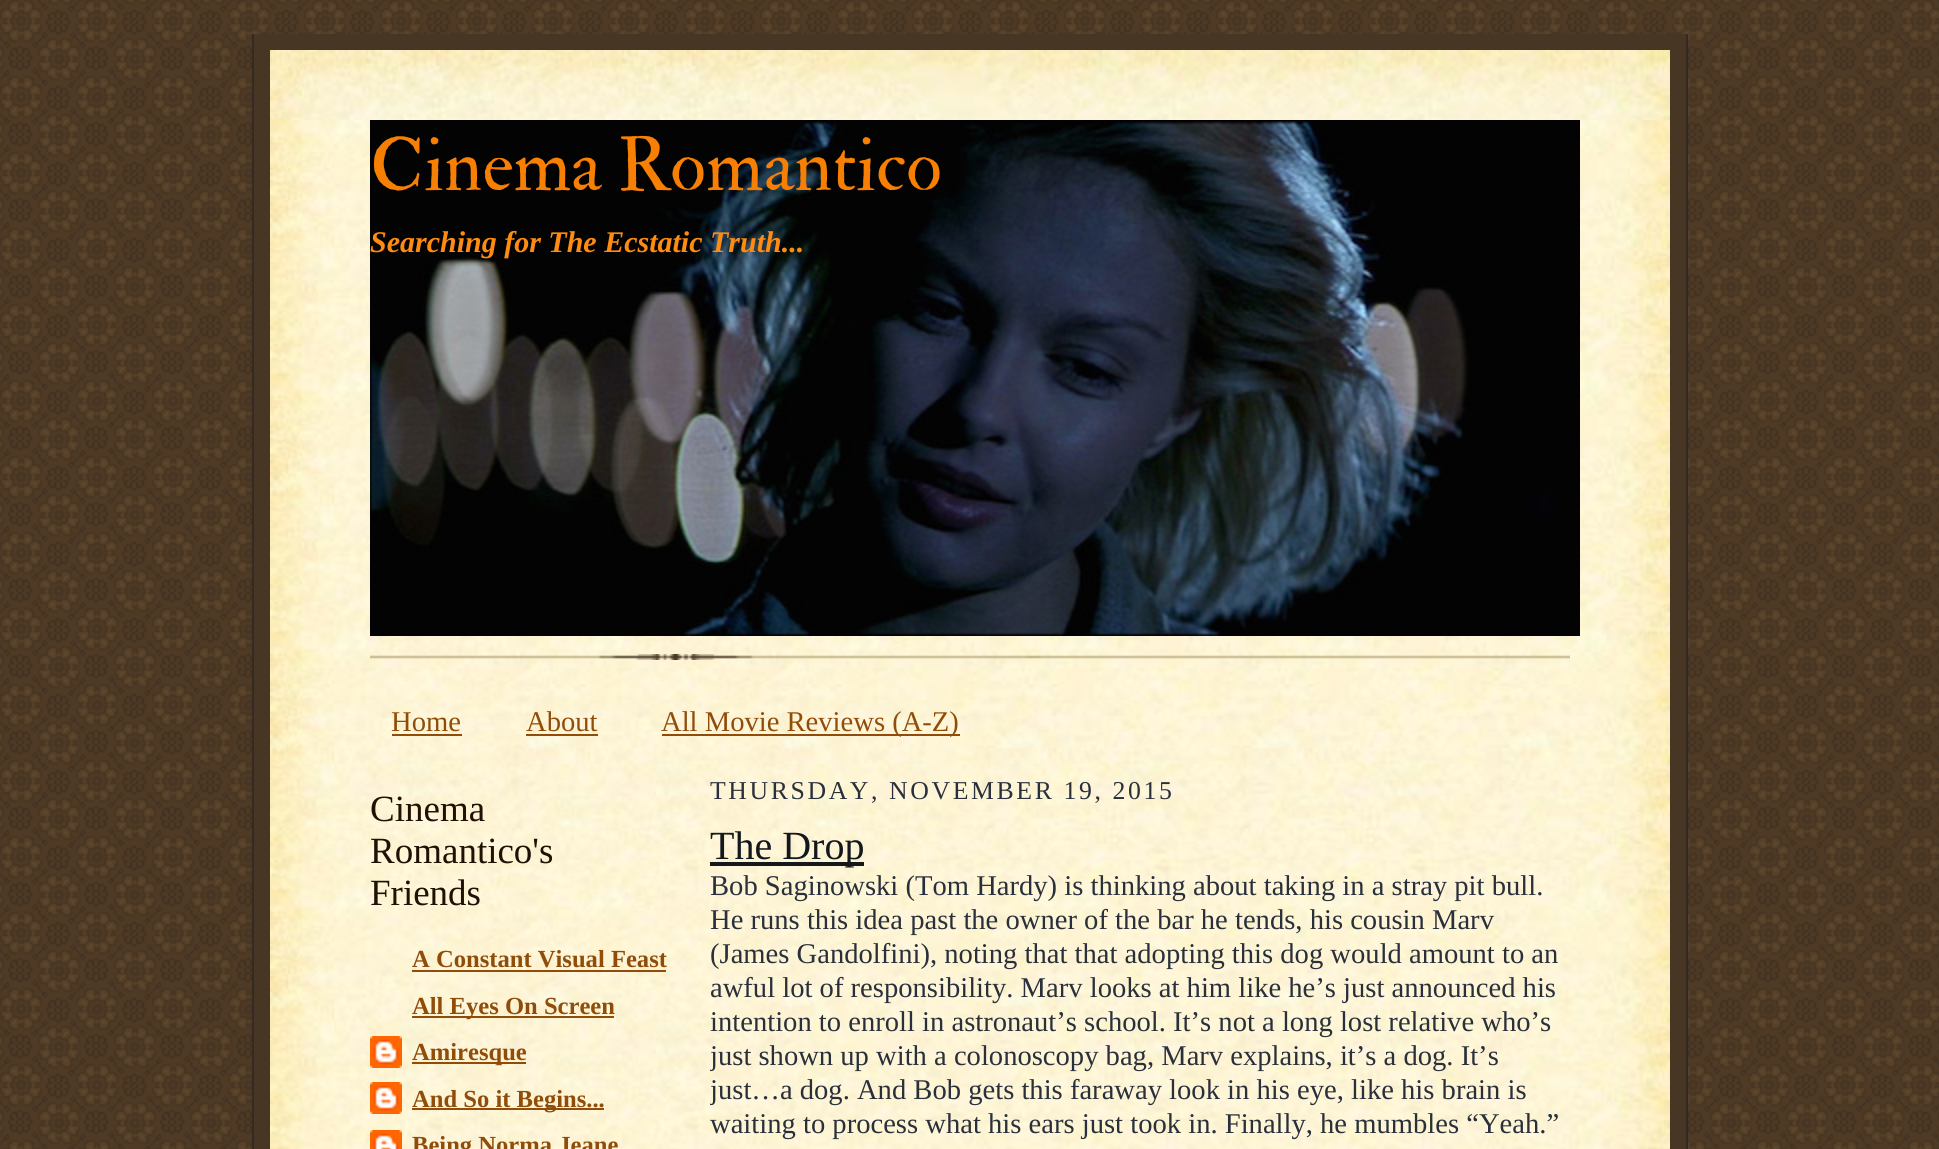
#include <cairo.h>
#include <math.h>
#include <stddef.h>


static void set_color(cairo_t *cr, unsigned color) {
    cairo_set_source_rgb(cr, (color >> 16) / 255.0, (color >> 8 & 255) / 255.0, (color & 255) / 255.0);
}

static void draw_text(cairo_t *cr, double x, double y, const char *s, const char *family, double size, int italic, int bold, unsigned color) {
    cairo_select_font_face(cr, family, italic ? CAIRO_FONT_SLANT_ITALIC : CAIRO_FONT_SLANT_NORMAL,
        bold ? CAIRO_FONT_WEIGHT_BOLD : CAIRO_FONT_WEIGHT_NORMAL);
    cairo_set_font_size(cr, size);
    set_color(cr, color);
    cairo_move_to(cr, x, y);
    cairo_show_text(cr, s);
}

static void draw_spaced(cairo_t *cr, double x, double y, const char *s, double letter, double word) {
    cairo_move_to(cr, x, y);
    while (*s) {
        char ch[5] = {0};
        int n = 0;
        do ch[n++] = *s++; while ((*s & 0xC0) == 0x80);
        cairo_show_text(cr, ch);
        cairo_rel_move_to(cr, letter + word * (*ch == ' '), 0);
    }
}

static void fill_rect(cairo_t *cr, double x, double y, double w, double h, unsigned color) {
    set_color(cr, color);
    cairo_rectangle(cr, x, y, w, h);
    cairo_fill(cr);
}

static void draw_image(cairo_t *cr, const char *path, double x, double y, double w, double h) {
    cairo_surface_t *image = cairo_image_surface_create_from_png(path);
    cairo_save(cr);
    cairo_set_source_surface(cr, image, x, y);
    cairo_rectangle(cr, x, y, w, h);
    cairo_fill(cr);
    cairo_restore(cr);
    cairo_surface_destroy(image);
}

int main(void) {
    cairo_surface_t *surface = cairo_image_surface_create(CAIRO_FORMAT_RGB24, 1939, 1149);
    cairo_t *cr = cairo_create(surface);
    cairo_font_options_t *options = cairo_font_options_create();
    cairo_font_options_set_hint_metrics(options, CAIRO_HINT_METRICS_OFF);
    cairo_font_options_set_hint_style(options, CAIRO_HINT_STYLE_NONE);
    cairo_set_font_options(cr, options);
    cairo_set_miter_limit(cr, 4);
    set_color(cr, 0xFFFFFF);
    cairo_paint(cr);
    draw_image(cr, "assets/img1.png", 0, 0, 1939, 1149);
    fill_rect(cr, 254, 34, 1432, 1115, 0x473624);
    fill_rect(cr, 1686, 34, 2, 1115, 0x332A24);
    fill_rect(cr, 252, 34, 2, 1115, 0x332A24);
    draw_image(cr, "assets/img2.png", 270, 50, 1400, 70);
    draw_image(cr, "assets/img3.png", 270, 120, 1400, 1029);
    draw_image(cr, "assets/img4.png", 370, 654, 1200, 6);
    draw_image(cr, "assets/img5.png", 370, 120, 1210, 516);
    draw_text(cr, 370, 190, "Cinema Romantico", "IM FELL Double Pica", 74.25, 0, 0, 0xF67F04);
    draw_text(cr, 370, 252, "Searching for The Ecstatic Truth...", "Liberation Serif", 30, 1, 1, 0xFF8B11);
    draw_text(cr, 391, 731, "Home", "Liberation Serif", 28.6, 0, 0, 0x904D09);
    fill_rect(cr, 392, 734, 70, 2, 0x904D09);
    draw_text(cr, 526, 731, "About", "Liberation Serif", 28.6, 0, 0, 0x904D09);
    fill_rect(cr, 526, 734, 72, 2, 0x904D09);
    fill_rect(cr, 662, 734, 298, 2, 0x904D09);
    draw_text(cr, 661, 731, "All Movie Reviews (A-Z)", "Liberation Serif", 28.6, 0, 0, 0x904D09);
    draw_text(cr, 370, 821, "Cinema", "Liberation Serif", 37, 0, 0, 0x211104);
    draw_text(cr, 370, 863, "Romantico's", "Liberation Serif", 37, 0, 0, 0x211104);
    draw_text(cr, 370, 905, "Friends", "Liberation Serif", 37, 0, 0, 0x211104);
    draw_text(cr, 412, 967, "A Constant Visual Feast", "Liberation Serif", 24.6, 0, 1, 0x904D09);
    fill_rect(cr, 412, 970, 254, 2, 0x904D09);
    fill_rect(cr, 412, 1016, 202, 2, 0x904D09);
    draw_text(cr, 412, 1014, "All Eyes On Screen", "Liberation Serif", 24.6, 0, 1, 0x904D09);
    draw_image(cr, "assets/img6.png", 370, 1036, 32, 32);
    fill_rect(cr, 412, 1062, 114, 2, 0x904D09);
    draw_text(cr, 412, 1060, "Amiresque", "Liberation Serif", 24.6, 0, 1, 0x904D09);
    draw_image(cr, "assets/img7.png", 370, 1082, 32, 32);
    fill_rect(cr, 412, 1108, 192, 2, 0x904D09);
    draw_text(cr, 412, 1107, "And So it Begins...", "Liberation Serif", 24.6, 0, 1, 0x904D09);
    draw_image(cr, "assets/img8.png", 370, 1130, 32, 19);
    draw_text(cr, 412, 1153, "Being Norma Jeane", "Liberation Serif", 24.6, 0, 1, 0x904D09);
    cairo_select_font_face(cr, "Liberation Serif", CAIRO_FONT_SLANT_NORMAL, CAIRO_FONT_WEIGHT_NORMAL);
    cairo_set_font_size(cr, 25.75);
    set_color(cr, 0x29303B);
    draw_spaced(cr, 710, 799, "THURSDAY, NOVEMBER 19, 2015", 2.6, 0);
    fill_rect(cr, 710, 862, 154, 4, 0x14181D);
    draw_text(cr, 710, 859, "The Drop", "Liberation Serif", 40, 0, 0, 0x14181D);
    draw_text(cr, 710, 895, "Bob Saginowski (Tom Hardy) is thinking about taking in a stray pit bull.", "Liberation Serif", 28.6, 0, 0, 0x29303B);
    draw_text(cr, 710, 929, "He runs this idea past the owner of the bar he tends, his cousin Marv", "Liberation Serif", 28.6, 0, 0, 0x29303B);
    draw_text(cr, 710, 963, "(James Gandolfini), noting that that adopting this dog would amount to an", "Liberation Serif", 28.6, 0, 0, 0x29303B);
    draw_text(cr, 710, 997, "awful lot of responsibility. Marv looks at him like he’s just announced his", "Liberation Serif", 28.6, 0, 0, 0x29303B);
    draw_text(cr, 710, 1031, "intention to enroll in astronaut’s school. It’s not a long lost relative who’s", "Liberation Serif", 28.6, 0, 0, 0x29303B);
    cairo_save(cr);
    cairo_rectangle(cr, 710, 760, 860, 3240);
    cairo_clip(cr);
    draw_text(cr, 710, 1065, "just shown up with a colonoscopy bag, Marv explains, it’s a dog. It’s", "Liberation Serif", 28.6, 0, 0, 0x29303B);
    draw_text(cr, 710, 1099, "just…a dog. And Bob gets this faraway look in his eye, like his brain is", "Liberation Serif", 28.6, 0, 0, 0x29303B);
    cairo_restore(cr);
    draw_text(cr, 710, 1133, "waiting to process what his ears just took in. Finally, he mumbles “Yeah.”", "Liberation Serif", 28.6, 0, 0, 0x29303B);
    cairo_surface_write_to_png(surface, "output.png");
    cairo_font_options_destroy(options);
    cairo_destroy(cr);
    cairo_surface_destroy(surface);
    return 0;
}
